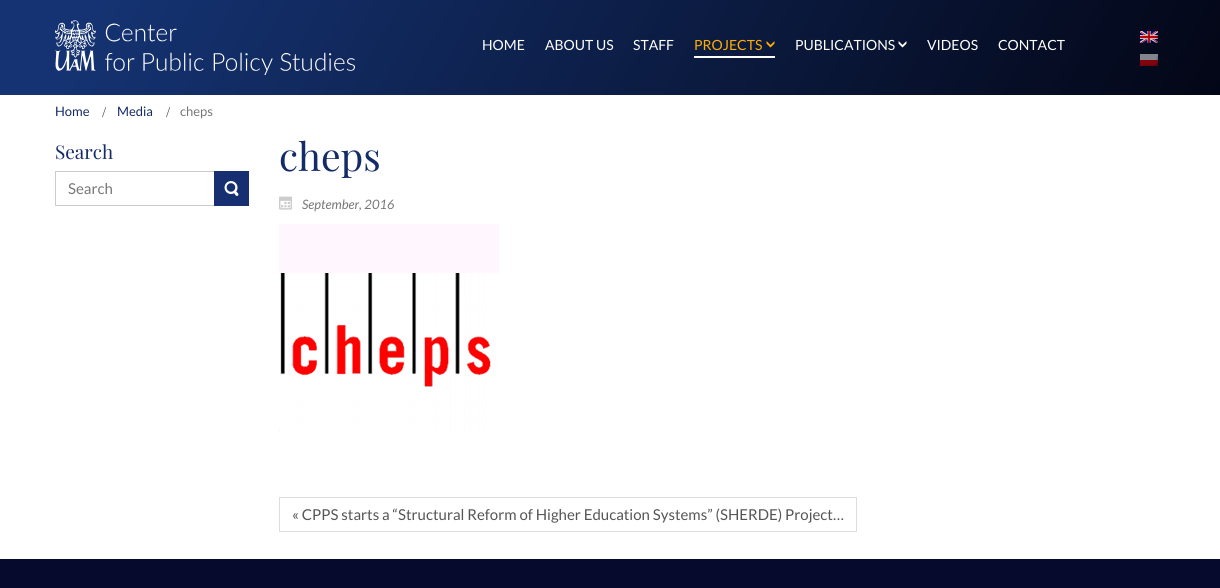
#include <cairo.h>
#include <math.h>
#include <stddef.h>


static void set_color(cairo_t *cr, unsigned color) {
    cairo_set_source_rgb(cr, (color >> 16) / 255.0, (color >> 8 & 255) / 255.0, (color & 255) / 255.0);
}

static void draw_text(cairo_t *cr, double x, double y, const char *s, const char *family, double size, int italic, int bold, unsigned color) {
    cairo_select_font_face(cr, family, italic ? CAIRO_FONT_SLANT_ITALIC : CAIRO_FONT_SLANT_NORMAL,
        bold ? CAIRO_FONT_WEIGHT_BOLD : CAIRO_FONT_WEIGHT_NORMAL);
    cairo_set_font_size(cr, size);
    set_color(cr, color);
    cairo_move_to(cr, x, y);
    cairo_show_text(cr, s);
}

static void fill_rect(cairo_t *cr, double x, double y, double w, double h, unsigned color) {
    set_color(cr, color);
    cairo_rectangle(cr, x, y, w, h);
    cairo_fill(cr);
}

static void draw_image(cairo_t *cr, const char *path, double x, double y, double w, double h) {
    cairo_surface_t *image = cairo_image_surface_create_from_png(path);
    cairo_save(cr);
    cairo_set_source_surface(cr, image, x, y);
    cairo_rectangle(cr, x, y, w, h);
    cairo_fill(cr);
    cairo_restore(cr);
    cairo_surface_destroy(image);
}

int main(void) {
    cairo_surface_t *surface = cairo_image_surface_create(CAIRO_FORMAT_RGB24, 1220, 588);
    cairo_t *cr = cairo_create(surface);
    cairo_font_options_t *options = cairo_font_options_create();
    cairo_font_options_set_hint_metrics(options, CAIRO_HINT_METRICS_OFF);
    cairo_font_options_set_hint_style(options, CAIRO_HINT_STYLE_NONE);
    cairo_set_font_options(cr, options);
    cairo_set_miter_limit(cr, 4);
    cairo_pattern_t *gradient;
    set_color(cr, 0xFFFFFF);
    cairo_paint(cr);
    gradient = cairo_pattern_create_linear(1097, 317, 123, -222);
    cairo_pattern_add_color_stop_rgba(gradient, 0, 0.012, 0.024, 0.086, 1);
    cairo_pattern_add_color_stop_rgba(gradient, 0.92, 0.082, 0.2, 0.447, 1);
    cairo_set_source(cr, gradient);
    cairo_pattern_destroy(gradient);
    cairo_rectangle(cr, 0, 0, 1220, 95);
    cairo_fill(cr);
    draw_image(cr, "assets/img1.png", 55, 20, 300, 55);
    draw_text(cr, 482, 50, "HOME", "Lato", 14, 0, 0, 0xFFFFFF);
    draw_text(cr, 545, 50, "ABOUT US", "Lato", 14, 0, 0, 0xFFFFFF);
    draw_text(cr, 633, 50, "STAFF", "Lato", 14, 0, 0, 0xFFFFFF);
    fill_rect(cr, 694, 56, 81, 2, 0xFFFFFF);
    draw_text(cr, 694, 50, "PROJECTS", "Lato", 14, 0, 0, 0xFFAE00);
    draw_image(cr, "assets/img2.png", 766, 41, 9, 7);
    draw_text(cr, 795, 50, "PUBLICATIONS", "Lato", 14, 0, 0, 0xFFFFFF);
    draw_image(cr, "assets/img3.png", 898, 41, 9, 7);
    draw_text(cr, 927, 50, "VIDEOS", "Lato", 14, 0, 0, 0xFFFFFF);
    draw_text(cr, 998, 50, "CONTACT", "Lato", 14, 0, 0, 0xFFFFFF);
    draw_image(cr, "assets/img4.png", 1140, 31, 18, 12);
    draw_image(cr, "assets/img5.png", 1140, 54, 18, 12);
    draw_text(cr, 55, 116, "Home", "Lato", 13, 0, 0, 0x132B66);
    draw_text(cr, 102, 117, "/", "Liberation Serif", 15, 0, 0, 0x555555);
    draw_text(cr, 117, 116, "Media", "Lato", 13, 0, 0, 0x132B66);
    draw_text(cr, 166, 117, "/", "Liberation Serif", 15, 0, 0, 0x555555);
    draw_text(cr, 180, 116, "cheps", "Lato", 13, 0, 0, 0x777777);
    draw_text(cr, 55, 159, "Search", "Playfair Display", 19, 0, 0, 0x132B66);
    cairo_rectangle(cr, 55.5, 171.5, 193, 34);
    set_color(cr, 0xCCCCCC);
    cairo_set_line_width(cr, 1);
    cairo_stroke(cr);
    draw_text(cr, 68, 194, "Search", "Lato", 15, 0, 0, 0x777777);
    fill_rect(cr, 214, 171, 35, 35, 0x152F70);
    draw_image(cr, "assets/img6.png", 224, 181, 15, 15);
    draw_text(cr, 279, 171, "cheps", "Playfair Display", 39, 0, 0, 0x132B66);
    draw_image(cr, "assets/img7.png", 279, 196, 13, 14);
    draw_text(cr, 302, 209, "September, 2016", "Lato", 13, 1, 0, 0x777777);
    draw_image(cr, "assets/img8.png", 279, 224, 220, 208);
    cairo_rectangle(cr, 279.5, 497.5, 577, 34);
    set_color(cr, 0xDDDDDD);
    cairo_stroke(cr);
    draw_text(cr, 292, 520, "« CPPS starts a “Structural Reform of Higher Education Systems” (SHERDE) Project…", "Lato", 15, 0, 0, 0x555555);
    fill_rect(cr, 0, 559, 1220, 29, 0x060B2D);
    cairo_surface_write_to_png(surface, "output.png");
    cairo_font_options_destroy(options);
    cairo_destroy(cr);
    cairo_surface_destroy(surface);
    return 0;
}
